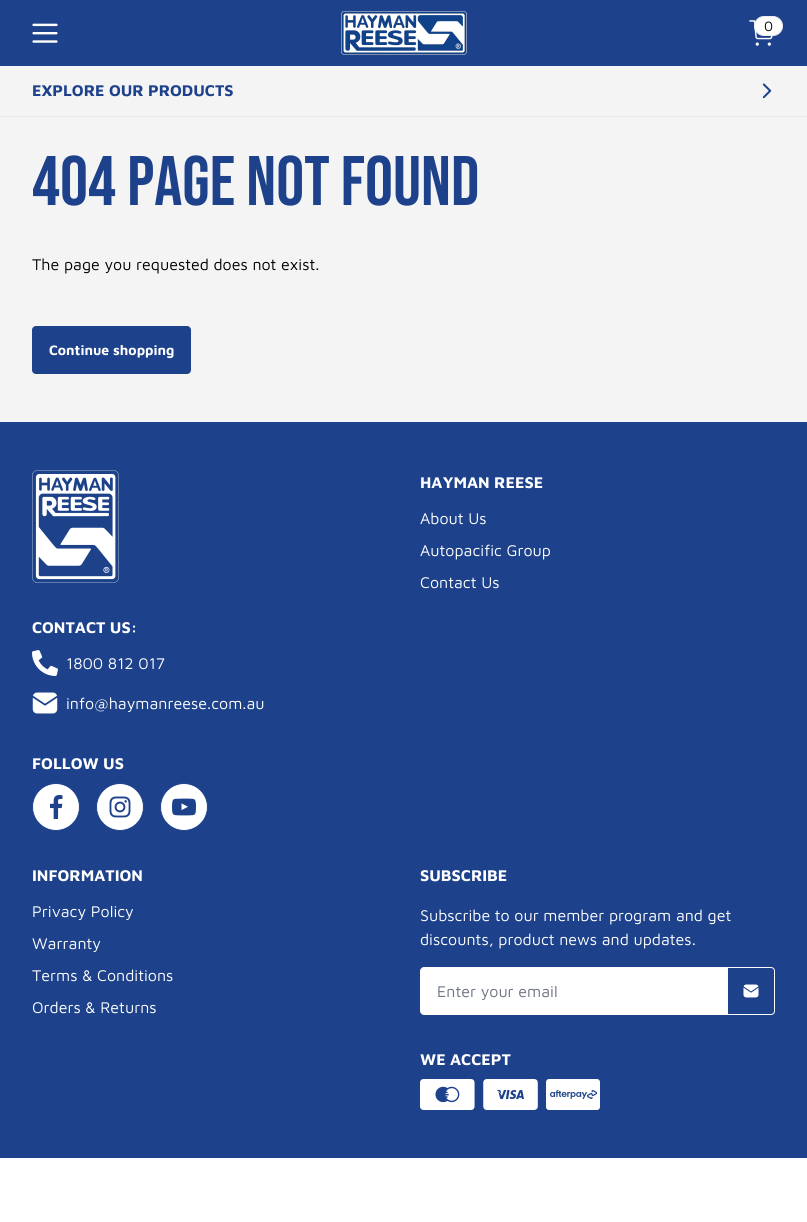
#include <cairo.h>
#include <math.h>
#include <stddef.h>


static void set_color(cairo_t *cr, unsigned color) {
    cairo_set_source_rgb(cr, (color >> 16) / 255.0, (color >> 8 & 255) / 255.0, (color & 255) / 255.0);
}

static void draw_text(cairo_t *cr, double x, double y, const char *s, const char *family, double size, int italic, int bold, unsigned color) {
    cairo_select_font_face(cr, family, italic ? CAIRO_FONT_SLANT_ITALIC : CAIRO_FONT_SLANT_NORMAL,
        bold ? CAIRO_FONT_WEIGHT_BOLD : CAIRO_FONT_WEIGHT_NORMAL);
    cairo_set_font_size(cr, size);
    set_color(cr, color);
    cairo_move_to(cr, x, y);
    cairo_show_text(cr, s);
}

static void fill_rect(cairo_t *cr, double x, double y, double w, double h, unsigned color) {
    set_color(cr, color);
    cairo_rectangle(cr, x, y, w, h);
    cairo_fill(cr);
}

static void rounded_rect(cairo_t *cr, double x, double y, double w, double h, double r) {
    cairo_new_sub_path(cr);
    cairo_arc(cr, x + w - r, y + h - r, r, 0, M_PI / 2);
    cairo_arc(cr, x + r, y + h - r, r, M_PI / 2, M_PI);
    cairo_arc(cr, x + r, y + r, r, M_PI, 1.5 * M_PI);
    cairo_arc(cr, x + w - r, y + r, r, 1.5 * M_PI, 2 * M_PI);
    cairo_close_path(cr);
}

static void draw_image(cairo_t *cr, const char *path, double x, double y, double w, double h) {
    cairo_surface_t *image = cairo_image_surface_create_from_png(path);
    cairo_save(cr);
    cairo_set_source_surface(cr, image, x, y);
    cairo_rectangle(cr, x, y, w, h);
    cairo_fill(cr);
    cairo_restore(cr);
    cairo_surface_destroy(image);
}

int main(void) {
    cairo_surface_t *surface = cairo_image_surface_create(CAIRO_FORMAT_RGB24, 807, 1222);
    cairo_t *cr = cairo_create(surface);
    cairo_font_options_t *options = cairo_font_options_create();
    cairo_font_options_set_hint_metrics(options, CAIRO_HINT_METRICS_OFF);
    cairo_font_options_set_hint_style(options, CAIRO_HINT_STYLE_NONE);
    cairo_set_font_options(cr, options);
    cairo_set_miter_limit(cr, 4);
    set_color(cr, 0xFFFFFF);
    cairo_paint(cr);
    fill_rect(cr, 0, 66, 807, 356, 0xF4F4F4);
    fill_rect(cr, 0, 0, 807, 66, 0x1D428B);
    draw_image(cr, "assets/img1.png", 32, 23, 26, 20);
    draw_image(cr, "assets/img2.png", 341, 11, 126, 44);
    draw_image(cr, "assets/img3.png", 749, 20, 24, 26);
    set_color(cr, 0xFFFFFF);
    rounded_rect(cr, 754.5, 16.5, 28, 19, 9.5);
    cairo_fill_preserve(cr);
    set_color(cr, 0xEDEDED);
    cairo_set_line_width(cr, 1);
    cairo_stroke(cr);
    draw_text(cr, 764, 31, "0", "Maven Pro", 14, 0, 0, 0x000000);
    fill_rect(cr, 0, 116, 807, 1, 0xE5E7EB);
    draw_text(cr, 32, 96, "EXPLORE OUR PRODUCTS", "Maven Pro", 16, 0, 1, 0x1D428B);
    draw_image(cr, "assets/img4.png", 762, 83, 10, 16);
    draw_text(cr, 32, 205, "404 Page Not Found", "Bebas Neue", 70, 0, 0, 0x1D428B);
    draw_text(cr, 32, 270, "The page you requested does not exist.", "Maven Pro", 16, 0, 0, 0x000000);
    set_color(cr, 0x1D428B);
    rounded_rect(cr, 32.5, 326.5, 158, 47, 3.5);
    cairo_fill_preserve(cr);
    cairo_stroke(cr);
    draw_text(cr, 49, 355, "Continue shopping", "Maven Pro", 14, 0, 1, 0xFFFFFF);
    fill_rect(cr, 0, 422, 807, 736, 0x1D428B);
    draw_text(cr, 420, 488, "HAYMAN REESE", "Maven Pro", 16, 0, 1, 0xFFFFFF);
    draw_text(cr, 420, 524, "About Us", "Maven Pro", 16, 0, 0, 0xFFFFFF);
    draw_text(cr, 420, 556, "Autopacific Group", "Maven Pro", 16, 0, 0, 0xFFFFFF);
    draw_text(cr, 420, 588, "Contact Us", "Maven Pro", 16, 0, 0, 0xFFFFFF);
    draw_image(cr, "assets/img5.png", 32, 470, 87, 113);
    draw_text(cr, 32, 633, "CONTACT US:", "Maven Pro", 16, 0, 1, 0xFFFFFF);
    draw_image(cr, "assets/img6.png", 32, 650, 26, 26);
    draw_text(cr, 66, 669, "1800 812 017", "Maven Pro", 16, 0, 0, 0xFFFFFF);
    draw_image(cr, "assets/img7.png", 32, 692, 26, 22);
    draw_text(cr, 66, 709, "info@haymanreese.com.au", "Maven Pro", 16, 0, 0, 0xFFFFFF);
    draw_text(cr, 32, 769, "FOLLOW US", "Maven Pro", 16, 0, 1, 0xFFFFFF);
    cairo_new_path(cr);
    cairo_arc(cr, 56, 807, 23.5, 0, 2 * M_PI);
    cairo_fill_preserve(cr);
    set_color(cr, 0x1D428B);
    cairo_stroke(cr);
    draw_image(cr, "assets/img8.png", 50, 795, 13, 24);
    set_color(cr, 0xFFFFFF);
    cairo_arc(cr, 120, 807, 23.5, 0, 2 * M_PI);
    cairo_fill_preserve(cr);
    set_color(cr, 0x1D428B);
    cairo_stroke(cr);
    draw_image(cr, "assets/img9.png", 109, 796, 22, 22);
    set_color(cr, 0xFFFFFF);
    cairo_arc(cr, 184, 807, 23.5, 0, 2 * M_PI);
    cairo_fill_preserve(cr);
    set_color(cr, 0x1D428B);
    cairo_stroke(cr);
    draw_image(cr, "assets/img10.png", 172, 798, 24, 18);
    draw_text(cr, 32, 881, "INFORMATION", "Maven Pro", 16, 0, 1, 0xFFFFFF);
    draw_text(cr, 32, 917, "Privacy Policy", "Maven Pro", 16, 0, 0, 0xFFFFFF);
    draw_text(cr, 32, 949, "Warranty", "Maven Pro", 16, 0, 0, 0xFFFFFF);
    draw_text(cr, 32, 981, "Terms & Conditions", "Maven Pro", 16, 0, 0, 0xFFFFFF);
    draw_text(cr, 32, 1013, "Orders & Returns", "Maven Pro", 16, 0, 0, 0xFFFFFF);
    draw_text(cr, 420, 881, "SUBSCRIBE", "Maven Pro", 16, 0, 1, 0xFFFFFF);
    draw_text(cr, 420, 921, "Subscribe to our member program and get", "Maven Pro", 16, 0, 0, 0xFFFFFF);
    draw_text(cr, 420, 945, "discounts, product news and updates.", "Maven Pro", 16, 0, 0, 0xFFFFFF);
    cairo_new_path(cr);
    cairo_move_to(cr, 424, 967);
    cairo_line_to(cr, 728, 967);
    cairo_line_to(cr, 728, 1015);
    cairo_line_to(cr, 424, 1015);
    cairo_curve_to(cr, 422, 1015, 420, 1013, 420, 1011);
    cairo_line_to(cr, 420, 971);
    cairo_curve_to(cr, 420, 969, 422, 967, 424, 967);
    cairo_close_path(cr);
    cairo_fill(cr);
    draw_text(cr, 437, 997, "Enter your email", "Maven Pro", 16, 0, 0, 0x6B7280);
    set_color(cr, 0x1D428B);
    cairo_new_path(cr);
    cairo_move_to(cr, 727.5, 967.5);
    cairo_line_to(cr, 771, 967.5);
    cairo_curve_to(cr, 773, 967.5, 774.5, 969, 774.5, 971);
    cairo_line_to(cr, 774.5, 1011);
    cairo_curve_to(cr, 774.5, 1013, 773, 1014.5, 771, 1014.5);
    cairo_line_to(cr, 727.5, 1014.5);
    cairo_close_path(cr);
    cairo_fill_preserve(cr);
    set_color(cr, 0xFFFFFF);
    cairo_stroke(cr);
    draw_image(cr, "assets/img11.png", 743, 984, 16, 14);
    draw_text(cr, 420, 1065, "WE ACCEPT", "Maven Pro", 16, 0, 1, 0xFFFFFF);
    draw_image(cr, "assets/img12.png", 420, 1079, 55, 31);
    draw_image(cr, "assets/img13.png", 483, 1079, 55, 31);
    draw_image(cr, "assets/img14.png", 546, 1079, 54, 31);
    cairo_surface_write_to_png(surface, "output.png");
    cairo_font_options_destroy(options);
    cairo_destroy(cr);
    cairo_surface_destroy(surface);
    return 0;
}
